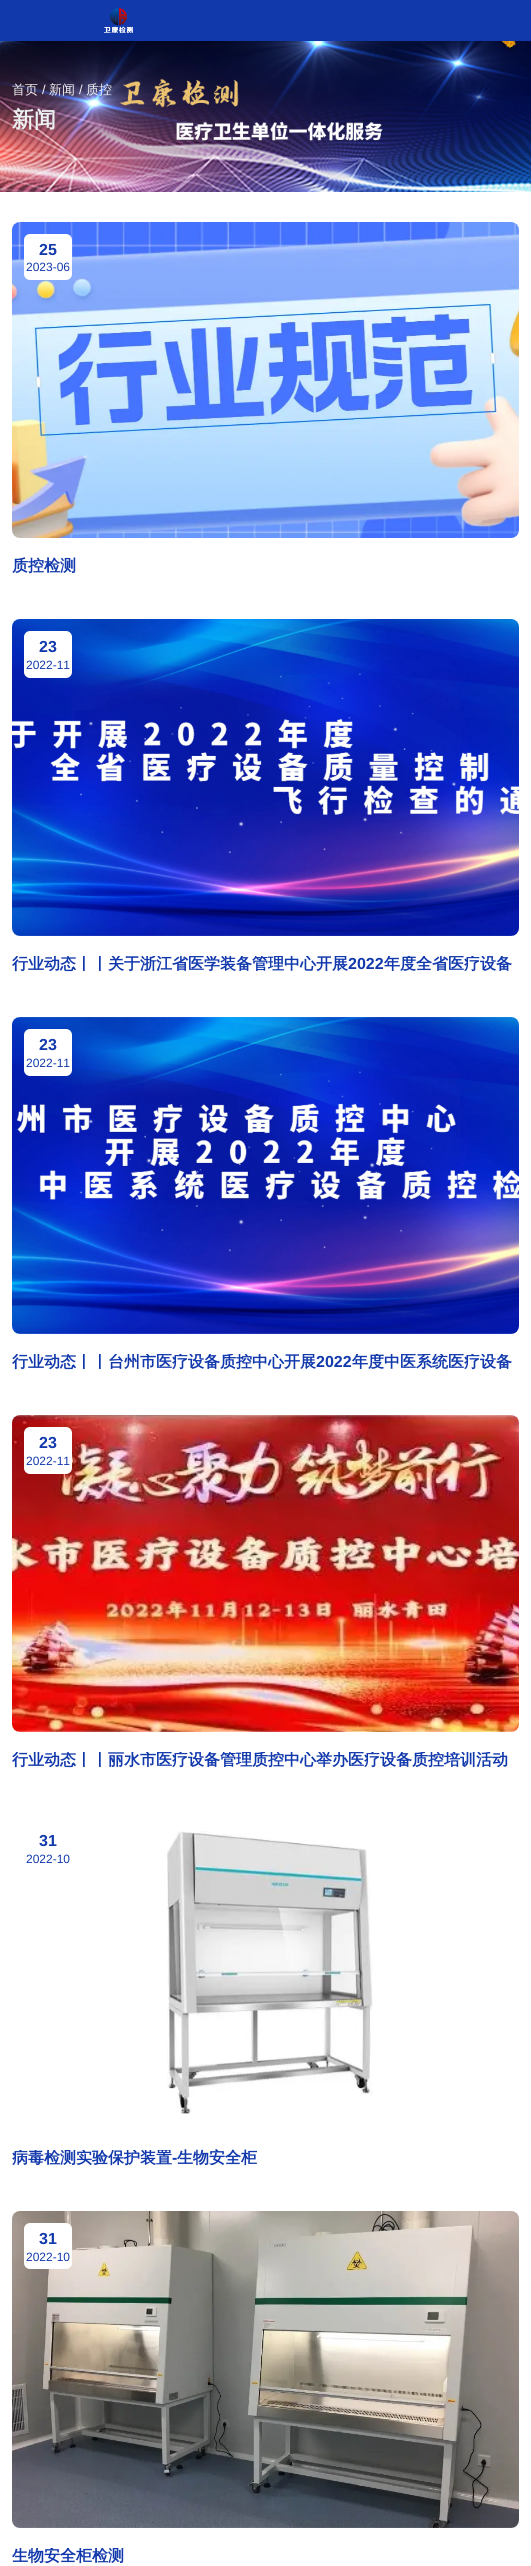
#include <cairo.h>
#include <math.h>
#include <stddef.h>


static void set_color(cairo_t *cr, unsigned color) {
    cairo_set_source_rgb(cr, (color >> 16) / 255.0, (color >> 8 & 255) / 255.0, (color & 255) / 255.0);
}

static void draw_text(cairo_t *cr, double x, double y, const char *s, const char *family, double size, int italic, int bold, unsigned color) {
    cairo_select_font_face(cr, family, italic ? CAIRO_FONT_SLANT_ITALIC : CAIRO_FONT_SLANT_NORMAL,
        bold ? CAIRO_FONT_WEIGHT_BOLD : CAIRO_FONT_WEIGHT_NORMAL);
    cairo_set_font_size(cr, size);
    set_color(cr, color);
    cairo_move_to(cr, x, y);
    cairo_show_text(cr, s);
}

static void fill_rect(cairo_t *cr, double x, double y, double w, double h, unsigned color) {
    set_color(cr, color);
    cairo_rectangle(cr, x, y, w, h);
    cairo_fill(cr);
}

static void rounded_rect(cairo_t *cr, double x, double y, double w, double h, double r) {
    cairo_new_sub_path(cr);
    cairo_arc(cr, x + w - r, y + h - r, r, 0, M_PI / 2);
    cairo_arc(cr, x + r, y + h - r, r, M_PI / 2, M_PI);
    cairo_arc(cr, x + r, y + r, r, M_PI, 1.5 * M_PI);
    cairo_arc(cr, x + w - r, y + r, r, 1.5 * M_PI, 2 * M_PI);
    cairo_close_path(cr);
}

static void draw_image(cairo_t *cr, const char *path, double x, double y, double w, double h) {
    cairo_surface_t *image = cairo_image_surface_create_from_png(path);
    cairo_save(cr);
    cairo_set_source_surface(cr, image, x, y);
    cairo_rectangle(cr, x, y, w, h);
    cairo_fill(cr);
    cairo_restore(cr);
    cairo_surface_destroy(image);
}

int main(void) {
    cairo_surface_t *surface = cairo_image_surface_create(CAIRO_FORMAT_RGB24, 531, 2566);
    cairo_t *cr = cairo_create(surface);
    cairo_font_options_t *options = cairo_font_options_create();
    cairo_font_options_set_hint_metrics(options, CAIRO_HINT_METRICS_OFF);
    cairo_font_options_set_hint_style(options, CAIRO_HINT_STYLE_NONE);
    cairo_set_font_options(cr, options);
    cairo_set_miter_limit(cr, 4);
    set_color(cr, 0xFFFFFF);
    cairo_paint(cr);
    fill_rect(cr, 0, 0, 531, 41, 0x1139AB);
    draw_image(cr, "assets/img1.png", 104, 8, 29, 25);
    draw_image(cr, "assets/img2.png", 0, 41, 531, 151);
    draw_text(cr, 12, 94, "首页", "WenQuanYi Zen Hei Medium", 13, 0, 0, 0xF5F3F3);
    draw_text(cr, 42, 94, "/", "Liberation Sans", 13, 0, 0, 0xFBF6F6);
    draw_text(cr, 49, 94, "新闻", "WenQuanYi Zen Hei Medium", 13, 0, 0, 0xF5F3F3);
    draw_text(cr, 79, 94, "/", "Liberation Sans", 13, 0, 0, 0xFBF6F6);
    draw_text(cr, 86, 94, "质控", "WenQuanYi Zen Hei Medium", 13, 0, 0, 0xF5F3F3);
    draw_text(cr, 12, 127, "新闻", "WenQuanYi Zen Hei", 22, 0, 1, 0xECF0F1);
    draw_image(cr, "assets/img3.png", 12, 222, 507, 316);
    set_color(cr, 0xFFFFFF);
    rounded_rect(cr, 24, 234, 48, 46, 6);
    cairo_fill(cr);
    draw_text(cr, 39, 255, "25", "Liberation Sans", 16, 0, 1, 0x1239AC);
    draw_text(cr, 26, 271, "2023-06", "Liberation Sans", 12, 0, 0, 0x1239AC);
    draw_text(cr, 12, 571, "质控检测", "WenQuanYi Zen Hei", 16, 0, 1, 0x1239AC);
    draw_image(cr, "assets/img4.png", 12, 619, 507, 317);
    set_color(cr, 0xFFFFFF);
    rounded_rect(cr, 24, 631, 48, 47, 6);
    cairo_fill(cr);
    draw_text(cr, 39, 652, "23", "Liberation Sans", 16, 0, 1, 0x1239AC);
    draw_text(cr, 26, 669, "2022-11", "Liberation Sans", 12, 0, 0, 0x1239AC);
    cairo_save(cr);
    cairo_rectangle(cr, 12, 956, 507, 16);
    cairo_clip(cr);
    draw_text(cr, 12, 969, "行业动态丨丨关于浙江省医学装备管理中心开展", "WenQuanYi Zen Hei", 16, 0, 1, 0x1239AC);
    cairo_restore(cr);
    draw_text(cr, 348, 969, "2022", "Liberation Sans", 16, 0, 1, 0x1239AC);
    cairo_save(cr);
    cairo_rectangle(cr, 12, 956, 507, 16);
    cairo_clip(cr);
    draw_text(cr, 384, 969, "年度全省医疗设备", "WenQuanYi Zen Hei", 16, 0, 1, 0x1239AC);
    cairo_restore(cr);
    draw_image(cr, "assets/img5.png", 12, 1017, 507, 317);
    set_color(cr, 0xFFFFFF);
    rounded_rect(cr, 24, 1029, 48, 47, 6);
    cairo_fill(cr);
    draw_text(cr, 39, 1050, "23", "Liberation Sans", 16, 0, 1, 0x1239AC);
    draw_text(cr, 26, 1067, "2022-11", "Liberation Sans", 12, 0, 0, 0x1239AC);
    cairo_save(cr);
    cairo_rectangle(cr, 12, 1354, 507, 16);
    cairo_clip(cr);
    draw_text(cr, 12, 1367, "行业动态丨丨台州市医疗设备质控中心开展", "WenQuanYi Zen Hei", 16, 0, 1, 0x1239AC);
    cairo_restore(cr);
    draw_text(cr, 316, 1367, "2022", "Liberation Sans", 16, 0, 1, 0x1239AC);
    cairo_save(cr);
    cairo_rectangle(cr, 12, 1354, 507, 16);
    cairo_clip(cr);
    draw_text(cr, 352, 1367, "年度中医系统医疗设备", "WenQuanYi Zen Hei", 16, 0, 1, 0x1239AC);
    cairo_restore(cr);
    draw_image(cr, "assets/img6.png", 12, 1415, 507, 317);
    set_color(cr, 0xFFFFFF);
    rounded_rect(cr, 24, 1427, 48, 47, 6);
    cairo_fill(cr);
    draw_text(cr, 39, 1448, "23", "Liberation Sans", 16, 0, 1, 0x1239AC);
    draw_text(cr, 26, 1465, "2022-11", "Liberation Sans", 12, 0, 0, 0x1239AC);
    cairo_save(cr);
    cairo_rectangle(cr, 12, 1752, 507, 16);
    cairo_clip(cr);
    draw_text(cr, 12, 1765, "行业动态丨丨丽水市医疗设备管理质控中心举办医疗设备质控培训活动", "WenQuanYi Zen Hei", 16, 0, 1, 0x1239AC);
    cairo_restore(cr);
    draw_text(cr, 39, 1846, "31", "Liberation Sans", 16, 0, 1, 0x1239AC);
    draw_text(cr, 26, 1863, "2022-10", "Liberation Sans", 12, 0, 0, 0x1239AC);
    draw_image(cr, "assets/img7.png", 167, 1831, 206, 283);
    cairo_save(cr);
    cairo_rectangle(cr, 12, 2150, 507, 16);
    cairo_clip(cr);
    draw_text(cr, 12, 2163, "病毒检测实验保护装置", "WenQuanYi Zen Hei", 16, 0, 1, 0x1239AC);
    cairo_restore(cr);
    draw_text(cr, 172, 2163, "-", "Liberation Sans", 16, 0, 1, 0x1239AC);
    draw_text(cr, 177, 2163, "生物安全柜", "WenQuanYi Zen Hei", 16, 0, 1, 0x1239AC);
    draw_image(cr, "assets/img8.png", 12, 2211, 507, 317);
    set_color(cr, 0xFFFFFF);
    rounded_rect(cr, 24, 2223, 48, 46, 6);
    cairo_fill(cr);
    draw_text(cr, 39, 2244, "31", "Liberation Sans", 16, 0, 1, 0x1239AC);
    draw_text(cr, 26, 2261, "2022-10", "Liberation Sans", 12, 0, 0, 0x1239AC);
    cairo_save(cr);
    cairo_rectangle(cr, 12, 2548, 507, 16);
    cairo_clip(cr);
    draw_text(cr, 12, 2561, "生物安全柜检测", "WenQuanYi Zen Hei", 16, 0, 1, 0x1239AC);
    cairo_restore(cr);
    cairo_surface_write_to_png(surface, "output.png");
    cairo_font_options_destroy(options);
    cairo_destroy(cr);
    cairo_surface_destroy(surface);
    return 0;
}
